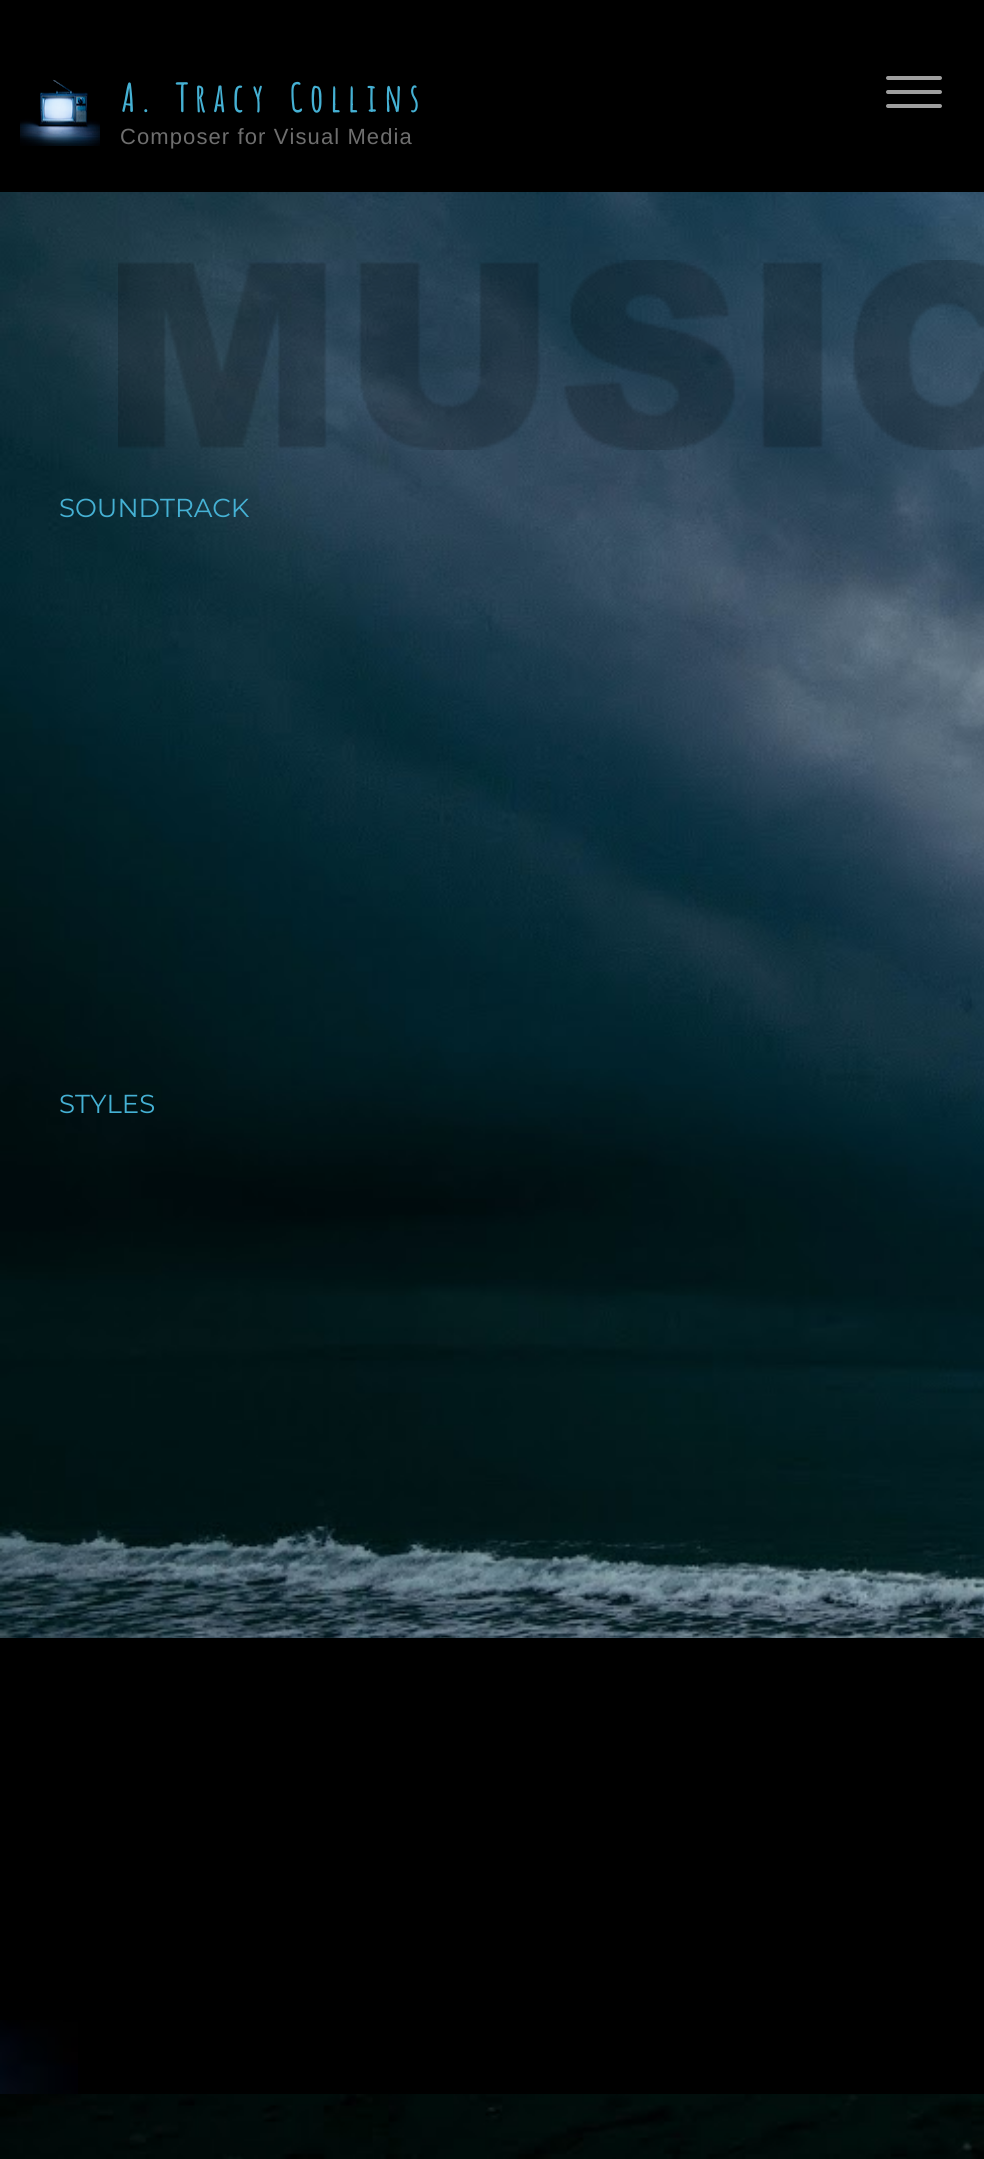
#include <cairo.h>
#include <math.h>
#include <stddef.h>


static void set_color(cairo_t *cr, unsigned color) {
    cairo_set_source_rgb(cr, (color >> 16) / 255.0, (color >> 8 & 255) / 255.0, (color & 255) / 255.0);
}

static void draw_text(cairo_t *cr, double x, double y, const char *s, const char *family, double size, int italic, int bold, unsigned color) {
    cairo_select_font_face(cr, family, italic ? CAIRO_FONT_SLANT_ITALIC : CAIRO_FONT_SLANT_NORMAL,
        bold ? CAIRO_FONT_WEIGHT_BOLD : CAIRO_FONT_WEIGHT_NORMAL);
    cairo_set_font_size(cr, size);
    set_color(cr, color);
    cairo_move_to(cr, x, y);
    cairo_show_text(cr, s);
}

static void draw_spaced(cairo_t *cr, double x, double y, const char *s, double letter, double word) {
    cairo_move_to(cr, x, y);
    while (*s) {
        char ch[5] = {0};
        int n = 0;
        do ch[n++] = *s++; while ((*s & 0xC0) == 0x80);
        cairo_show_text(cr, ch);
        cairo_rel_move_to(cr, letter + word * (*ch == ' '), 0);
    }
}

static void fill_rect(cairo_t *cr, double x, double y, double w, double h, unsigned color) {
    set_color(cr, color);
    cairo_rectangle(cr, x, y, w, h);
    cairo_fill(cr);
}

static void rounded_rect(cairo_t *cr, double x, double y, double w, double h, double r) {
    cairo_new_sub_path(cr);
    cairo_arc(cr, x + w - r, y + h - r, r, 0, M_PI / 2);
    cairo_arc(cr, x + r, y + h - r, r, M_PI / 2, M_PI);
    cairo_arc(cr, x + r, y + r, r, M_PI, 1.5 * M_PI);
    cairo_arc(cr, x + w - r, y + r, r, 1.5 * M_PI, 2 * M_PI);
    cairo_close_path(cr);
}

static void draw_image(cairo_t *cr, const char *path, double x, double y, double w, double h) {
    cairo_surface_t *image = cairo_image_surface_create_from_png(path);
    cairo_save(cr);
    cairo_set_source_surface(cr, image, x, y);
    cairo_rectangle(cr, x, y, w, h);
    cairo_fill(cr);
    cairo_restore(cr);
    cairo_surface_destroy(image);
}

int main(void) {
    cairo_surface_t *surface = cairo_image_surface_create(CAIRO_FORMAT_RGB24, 984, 2159);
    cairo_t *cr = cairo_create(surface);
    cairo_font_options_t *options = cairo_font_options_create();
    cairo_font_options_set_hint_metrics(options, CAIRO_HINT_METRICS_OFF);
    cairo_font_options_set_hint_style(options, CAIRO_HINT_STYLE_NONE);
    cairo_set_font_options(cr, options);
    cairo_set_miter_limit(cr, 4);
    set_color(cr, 0xFFFFFF);
    cairo_paint(cr);
    draw_image(cr, "assets/img1.png", 0, 192, 984, 1967);
    fill_rect(cr, 0, 0, 984, 192, 0x000000);
    draw_image(cr, "assets/img2.png", 20, 79, 80, 67);
    cairo_select_font_face(cr, "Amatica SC", CAIRO_FONT_SLANT_NORMAL, CAIRO_FONT_WEIGHT_BOLD);
    cairo_set_font_size(cr, 38);
    set_color(cr, 0x45B1D4);
    draw_spaced(cr, 120, 112, "A. Tracy Collins", 5.75, 0);
    cairo_select_font_face(cr, "Liberation Sans", CAIRO_FONT_SLANT_NORMAL, CAIRO_FONT_WEIGHT_NORMAL);
    cairo_set_font_size(cr, 22);
    set_color(cr, 0x6E6E6E);
    draw_spaced(cr, 120, 144, "Composer for Visual Media", 1.1, 0);
    set_color(cr, 0x9F9F9F);
    rounded_rect(cr, 886, 90, 56, 4, 2);
    cairo_fill(cr);
    rounded_rect(cr, 886, 76, 56, 4, 2);
    cairo_fill(cr);
    rounded_rect(cr, 886, 104, 56, 4, 2);
    cairo_fill(cr);
    draw_image(cr, "assets/img3.png", 118, 260, 866, 190);
    draw_text(cr, 59, 517, "SOUNDTRACK", "Montserrat Thin", 26, 0, 0, 0x45B1D4);
    draw_text(cr, 59, 1113, "STYLES", "Montserrat Thin", 26, 0, 0, 0x45B1D4);
    fill_rect(cr, 0, 1638, 984, 456, 0x000000);
    draw_image(cr, "assets/img4.png", 0, 2020, 78, 74);
    cairo_surface_write_to_png(surface, "output.png");
    cairo_font_options_destroy(options);
    cairo_destroy(cr);
    cairo_surface_destroy(surface);
    return 0;
}
